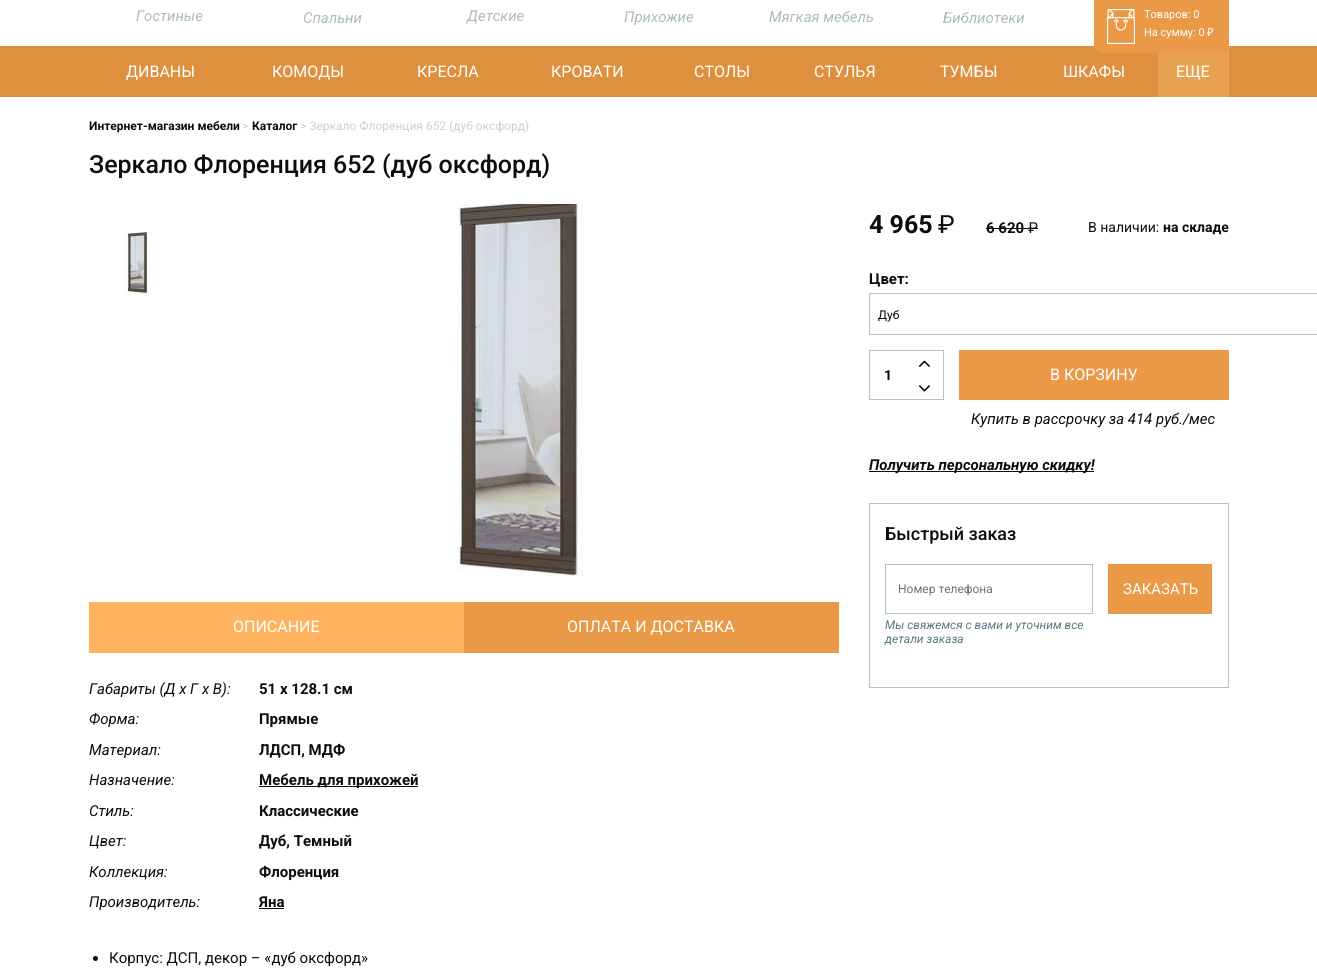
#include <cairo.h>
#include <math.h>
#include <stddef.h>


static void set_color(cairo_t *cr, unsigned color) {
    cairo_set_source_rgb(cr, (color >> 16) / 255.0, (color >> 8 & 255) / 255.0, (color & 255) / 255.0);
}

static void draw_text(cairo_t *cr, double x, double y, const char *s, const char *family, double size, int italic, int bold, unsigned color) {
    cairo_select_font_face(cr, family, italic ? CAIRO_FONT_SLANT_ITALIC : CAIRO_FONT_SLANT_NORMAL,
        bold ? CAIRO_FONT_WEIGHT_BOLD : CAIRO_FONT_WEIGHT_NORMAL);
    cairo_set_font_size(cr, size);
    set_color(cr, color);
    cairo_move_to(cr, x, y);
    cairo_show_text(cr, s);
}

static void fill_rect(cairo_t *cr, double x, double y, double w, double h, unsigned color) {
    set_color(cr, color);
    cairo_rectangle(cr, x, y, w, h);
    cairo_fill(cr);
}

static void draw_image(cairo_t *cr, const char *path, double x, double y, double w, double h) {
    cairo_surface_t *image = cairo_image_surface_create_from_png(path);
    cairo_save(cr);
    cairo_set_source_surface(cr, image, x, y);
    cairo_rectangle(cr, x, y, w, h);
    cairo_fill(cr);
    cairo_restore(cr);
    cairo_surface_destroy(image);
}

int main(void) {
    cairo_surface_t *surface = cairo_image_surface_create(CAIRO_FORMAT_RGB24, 1317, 977);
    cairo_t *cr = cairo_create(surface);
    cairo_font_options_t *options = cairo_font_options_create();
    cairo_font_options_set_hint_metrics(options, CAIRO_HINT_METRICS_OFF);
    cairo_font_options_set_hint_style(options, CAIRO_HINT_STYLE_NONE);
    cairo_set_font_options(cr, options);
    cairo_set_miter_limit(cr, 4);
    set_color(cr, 0xFFFFFF);
    cairo_paint(cr);
    draw_text(cr, 136, 21, "Гостиные", "Roboto", 15, 1, 0, 0xACBCBF);
    draw_text(cr, 303, 23, "Спальни", "Roboto", 15, 1, 0, 0xACBCBF);
    draw_text(cr, 467, 21, "Детские", "Roboto", 15, 1, 0, 0xACBCBF);
    draw_text(cr, 624, 22, "Прихожие", "Roboto", 15, 1, 0, 0xACBCBF);
    draw_text(cr, 769, 22, "Мягкая мебель", "Roboto", 15, 1, 0, 0xACBCBF);
    draw_text(cr, 943, 23, "Библиотеки", "Roboto", 15, 1, 0, 0xACBCBF);
    fill_rect(cr, 0, 46, 1317, 51, 0xDF903F);
    draw_text(cr, 126, 77, "ДИВАНЫ", "Roboto", 16, 0, 0, 0xFFFFFF);
    draw_text(cr, 272, 77, "КОМОДЫ", "Roboto", 16, 0, 0, 0xFFFFFF);
    draw_text(cr, 417, 77, "КРЕСЛА", "Roboto", 16, 0, 0, 0xFFFFFF);
    draw_text(cr, 551, 77, "КРОВАТИ", "Roboto", 16, 0, 0, 0xFFFFFF);
    draw_text(cr, 694, 77, "СТОЛЫ", "Roboto", 16, 0, 0, 0xFFFFFF);
    draw_text(cr, 814, 77, "СТУЛЬЯ", "Roboto", 16, 0, 0, 0xFFFFFF);
    draw_text(cr, 940, 77, "ТУМБЫ", "Roboto", 16, 0, 0, 0xFFFFFF);
    draw_text(cr, 1063, 77, "ШКАФЫ", "Roboto", 16, 0, 0, 0xFFFFFF);
    fill_rect(cr, 1158, 46, 71, 51, 0xE9A252);
    draw_text(cr, 1176, 77, "ЕЩЕ", "Roboto", 16, 0, 0, 0xFFFFFF);
    set_color(cr, 0xEA9947);
    cairo_new_path(cr);
    cairo_move_to(cr, 1094, 0);
    cairo_line_to(cr, 1229, 0);
    cairo_line_to(cr, 1229, 44);
    cairo_curve_to(cr, 1229, 49, 1225, 53, 1220, 53);
    cairo_line_to(cr, 1103, 53);
    cairo_curve_to(cr, 1098, 53, 1094, 49, 1094, 44);
    cairo_close_path(cr);
    cairo_fill(cr);
    draw_image(cr, "assets/img1.png", 1107, 9, 28, 35);
    draw_text(cr, 1144, 18, "Товаров: 0", "Roboto", 11, 0, 0, 0xFFFFFF);
    draw_text(cr, 1144, 36, "На сумму: 0", "Roboto", 11, 0, 0, 0xFFFFFF);
    draw_text(cr, 1207, 36, "₽", "Noto Sans", 11, 0, 0, 0xFFFFFF);
    draw_text(cr, 89, 130, "Интернет-магазин мебели", "Roboto", 12, 0, 1, 0x0D0D0D);
    draw_text(cr, 242, 130, ">", "Roboto", 12, 0, 0, 0xCFCFCF);
    draw_text(cr, 252, 130, "Каталог", "Roboto", 12, 0, 1, 0x0D0D0D);
    draw_text(cr, 300, 130, "> Зеркало Флоренция 652 (дуб оксфорд)", "Roboto", 12, 0, 0, 0xCFCFCF);
    draw_text(cr, 89, 173, "Зеркало Флоренция 652 (дуб оксфорд)", "Roboto Medium", 25, 0, 0, 0x0D0D0D);
    draw_text(cr, 869, 233, "4 965", "Roboto", 25, 0, 1, 0x0D0D0D);
    draw_text(cr, 938, 233, "₽", "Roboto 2", 25, 0, 0, 0x0D0D0D);
    draw_text(cr, 986, 233, "6 620", "Roboto", 15, 0, 1, 0x0D0D0D);
    fill_rect(cr, 986, 228, 42, 1, 0x0D0D0D);
    draw_text(cr, 1028, 233, "₽", "Roboto 2", 15, 0, 0, 0x0D0D0D);
    fill_rect(cr, 1028, 228, 10, 1, 0x0D0D0D);
    draw_text(cr, 1088, 232, "В наличии:", "Roboto", 14, 0, 0, 0x0D0D0D);
    draw_text(cr, 1163, 232, "на складе", "Roboto", 14, 0, 1, 0x0D0D0D);
    draw_text(cr, 869, 284, "Цвет:", "Roboto", 15, 0, 1, 0x0D0D0D);
    cairo_rectangle(cr, 869.5, 293.5, 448, 41);
    set_color(cr, 0xB4C2C5);
    cairo_set_line_width(cr, 1);
    cairo_stroke(cr);
    draw_text(cr, 878, 319, "Дуб", "Roboto", 12, 0, 0, 0x0D0D0D);
    cairo_rectangle(cr, 869.5, 350.5, 74, 49);
    set_color(cr, 0xB4C2C5);
    cairo_stroke(cr);
    draw_image(cr, "assets/img2.png", 918, 360, 12, 7);
    draw_text(cr, 884, 380, "1", "Roboto", 14, 0, 1, 0x0D0D0D);
    draw_image(cr, "assets/img3.png", 918, 385, 12, 7);
    fill_rect(cr, 959, 350, 270, 50, 0xEA9947);
    draw_text(cr, 1050, 380, "В КОРЗИНУ", "Roboto", 16, 0, 0, 0xFFFFFF);
    draw_text(cr, 971, 424, "Купить в рассрочку за 414 руб./мес", "Roboto", 15, 1, 0, 0x0D0D0D);
    fill_rect(cr, 869, 471, 225, 1, 0x0D0D0D);
    draw_text(cr, 869, 470, "Получить персональную скидку!", "Roboto", 15, 1, 1, 0x0D0D0D);
    cairo_rectangle(cr, 869.5, 503.5, 359, 184);
    set_color(cr, 0xB4C2C5);
    cairo_stroke(cr);
    draw_text(cr, 885, 540, "Быстрый заказ", "Roboto Medium", 18, 0, 0, 0x0D0D0D);
    cairo_rectangle(cr, 885.5, 564.5, 207, 49);
    set_color(cr, 0xB4C2C5);
    cairo_stroke(cr);
    draw_text(cr, 898, 593, "Номер телефона", "Roboto", 12, 0, 0, 0x717171);
    draw_text(cr, 885, 629, "Мы свяжемся с вами и уточним все", "Roboto", 12, 1, 0, 0x58797F);
    draw_text(cr, 885, 643, "детали заказа", "Roboto", 12, 1, 0, 0x58797F);
    fill_rect(cr, 1108, 564, 104, 50, 0xEA9947);
    draw_text(cr, 1123, 594, "ЗАКАЗАТЬ", "Roboto", 15, 0, 0, 0xFFFFFF);
    draw_image(cr, "assets/img4.png", 125, 232, 24, 64);
    draw_image(cr, "assets/img5.png", 456, 204, 127, 372);
    fill_rect(cr, 89, 602, 375, 51, 0xFFB35F);
    draw_text(cr, 233, 632, "ОПИСАНИЕ", "Roboto", 16, 0, 0, 0xFFFFFF);
    fill_rect(cr, 464, 602, 375, 51, 0xEA9947);
    draw_text(cr, 567, 632, "ОПЛАТА И ДОСТАВКА", "Roboto", 16, 0, 0, 0xFFFFFF);
    draw_text(cr, 89, 694, "Габариты (Д x Г x В):", "Roboto", 15, 1, 0, 0x0D0D0D);
    draw_text(cr, 259, 694, "51 x 128.1 см", "Roboto", 15, 0, 1, 0x0D0D0D);
    draw_text(cr, 89, 724, "Форма:", "Roboto", 15, 1, 0, 0x0D0D0D);
    draw_text(cr, 259, 724, "Прямые", "Roboto", 15, 0, 1, 0x0D0D0D);
    draw_text(cr, 89, 755, "Материал:", "Roboto", 15, 1, 0, 0x0D0D0D);
    draw_text(cr, 259, 755, "ЛДСП, МДФ", "Roboto", 15, 0, 1, 0x0D0D0D);
    draw_text(cr, 89, 785, "Назначение:", "Roboto", 15, 1, 0, 0x0D0D0D);
    fill_rect(cr, 259, 786, 159, 1, 0x0D0D0D);
    draw_text(cr, 259, 785, "Мебель для прихожей", "Roboto", 15, 0, 1, 0x0D0D0D);
    draw_text(cr, 89, 816, "Стиль:", "Roboto", 15, 1, 0, 0x0D0D0D);
    draw_text(cr, 259, 816, "Классические", "Roboto", 15, 0, 1, 0x0D0D0D);
    draw_text(cr, 89, 846, "Цвет:", "Roboto", 15, 1, 0, 0x0D0D0D);
    draw_text(cr, 259, 846, "Дуб, Темный", "Roboto", 15, 0, 1, 0x0D0D0D);
    draw_text(cr, 89, 877, "Коллекция:", "Roboto", 15, 1, 0, 0x0D0D0D);
    draw_text(cr, 259, 877, "Флоренция", "Roboto", 15, 0, 1, 0x0D0D0D);
    draw_text(cr, 89, 907, "Производитель:", "Roboto", 15, 1, 0, 0x0D0D0D);
    draw_text(cr, 259, 907, "Яна", "Roboto", 15, 0, 1, 0x0D0D0D);
    fill_rect(cr, 259, 908, 25, 1, 0x0D0D0D);
    cairo_new_path(cr);
    cairo_arc(cr, 95.5, 958.5, 2.5, 0, 2 * M_PI);
    cairo_fill(cr);
    draw_text(cr, 109, 963, "Корпус: ДСП, декор – «дуб оксфорд»", "Roboto", 15, 0, 0, 0x0D0D0D);
    cairo_surface_write_to_png(surface, "output.png");
    cairo_font_options_destroy(options);
    cairo_destroy(cr);
    cairo_surface_destroy(surface);
    return 0;
}
